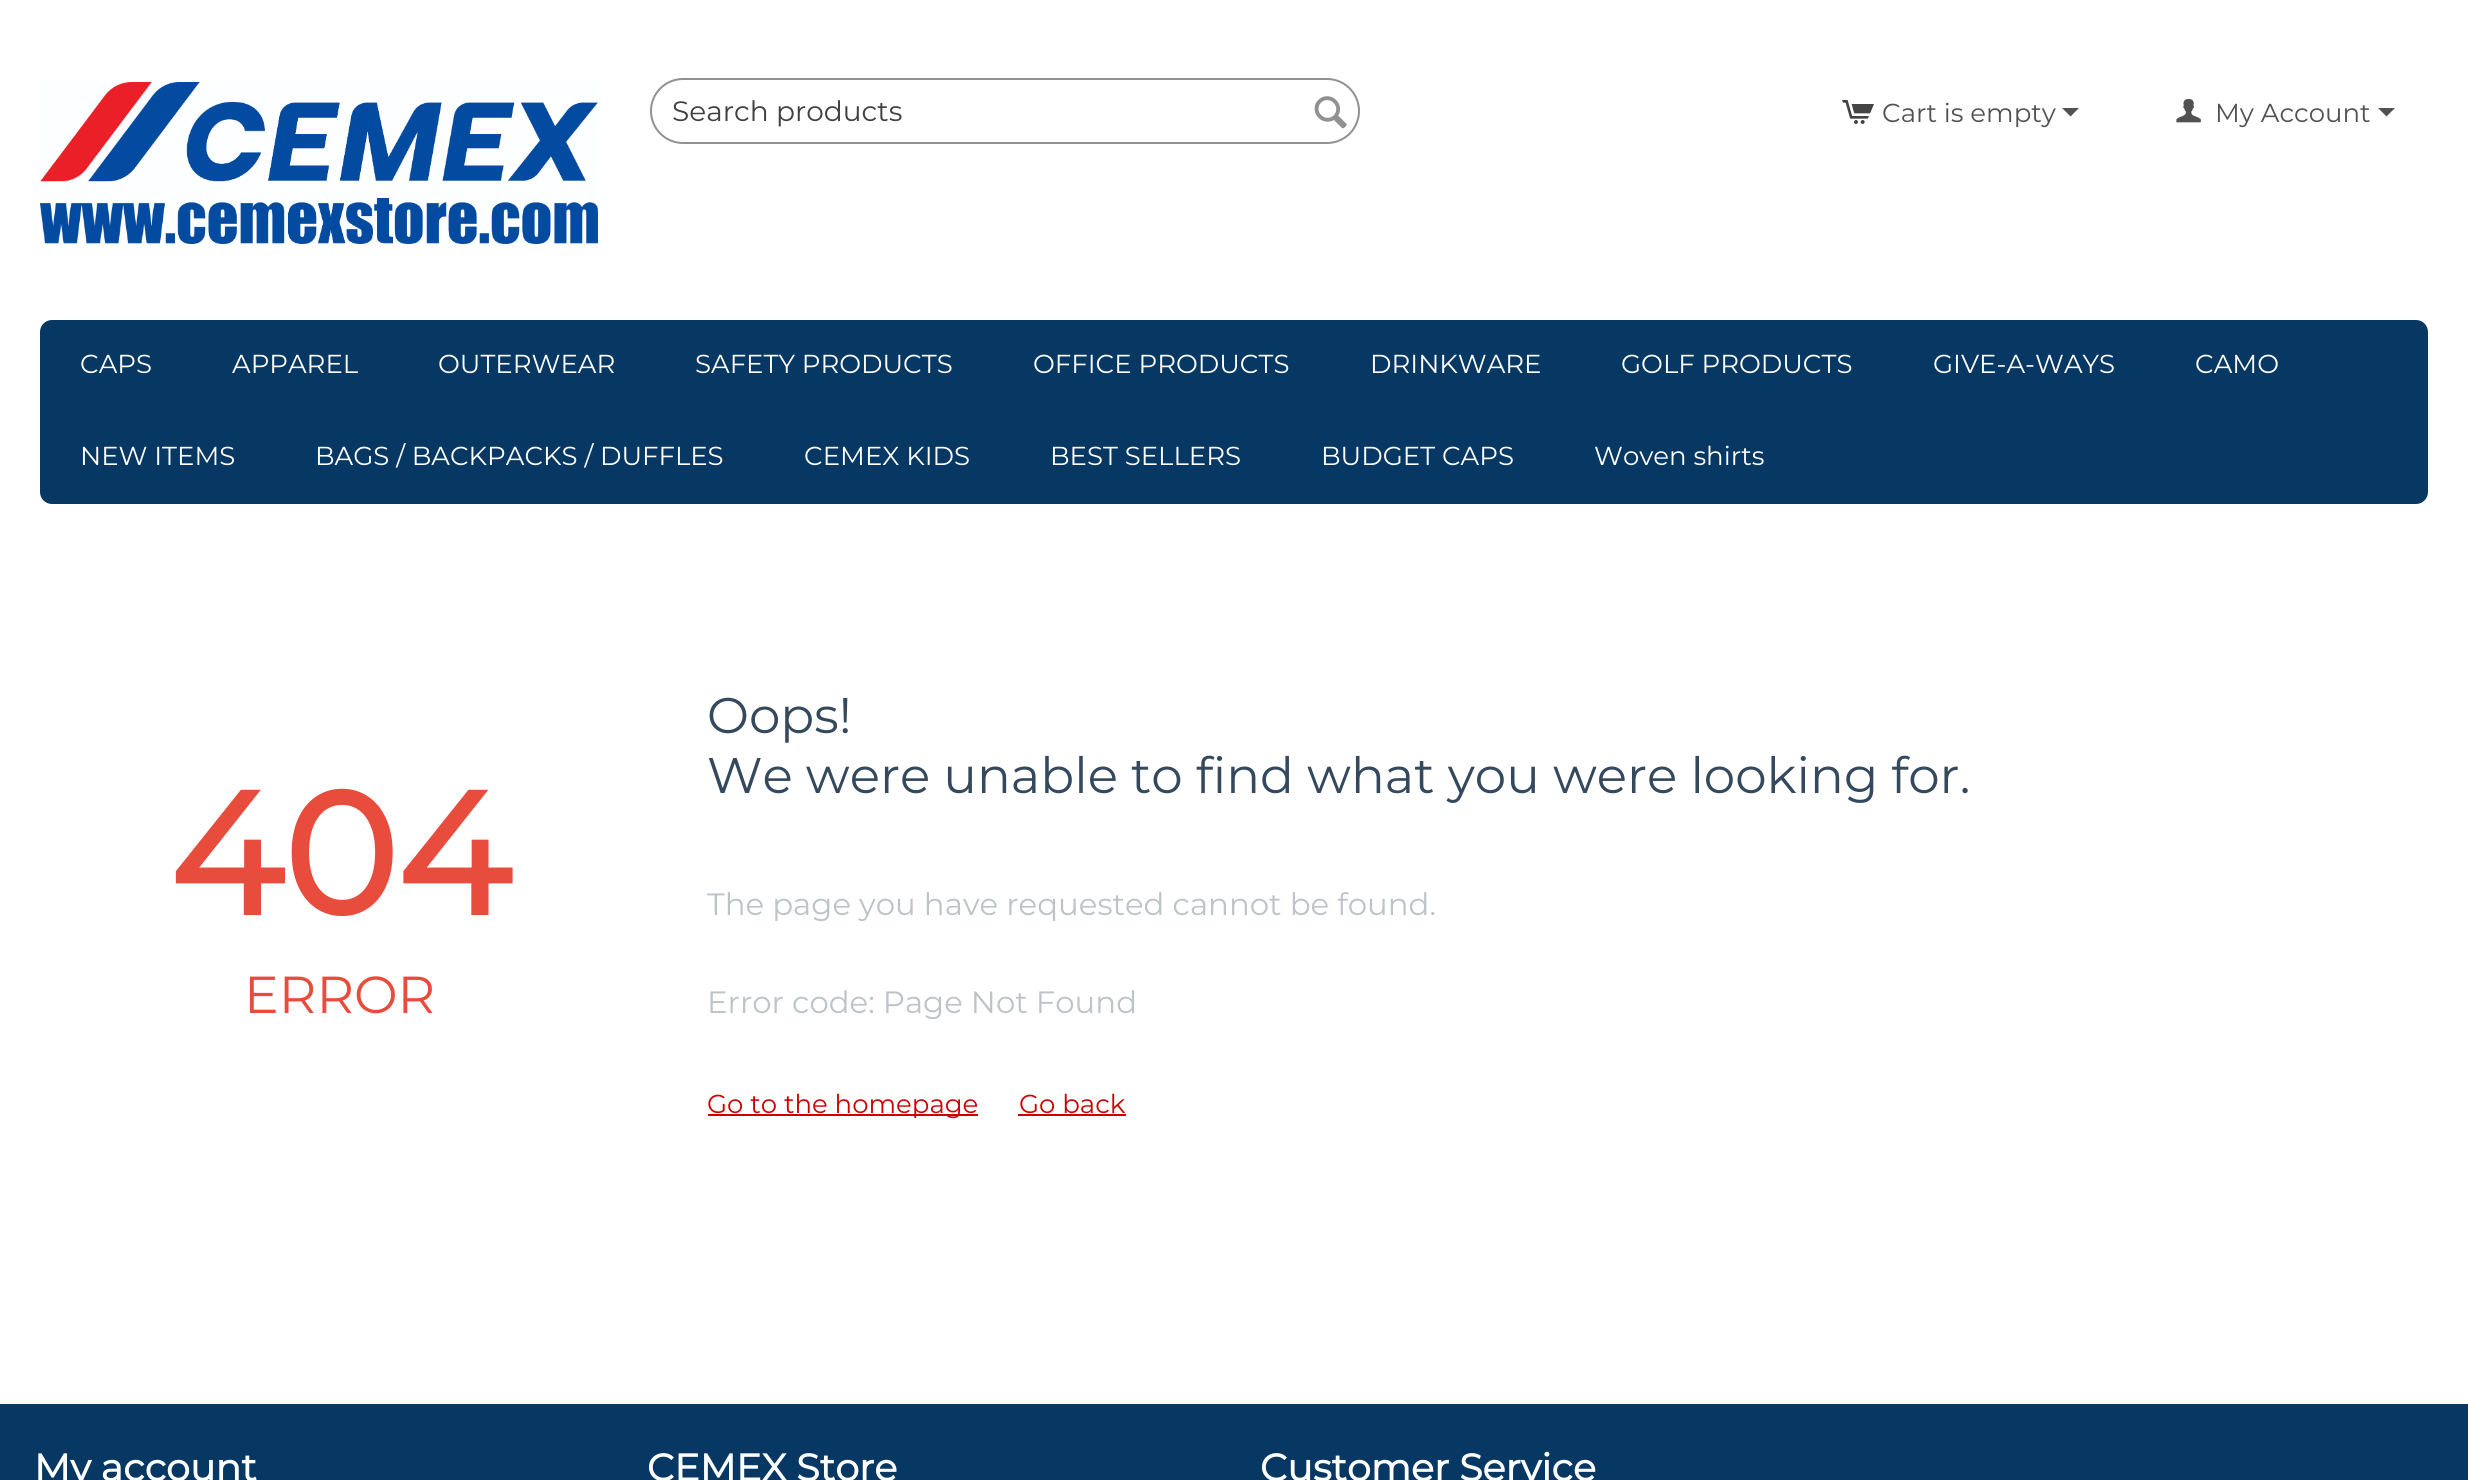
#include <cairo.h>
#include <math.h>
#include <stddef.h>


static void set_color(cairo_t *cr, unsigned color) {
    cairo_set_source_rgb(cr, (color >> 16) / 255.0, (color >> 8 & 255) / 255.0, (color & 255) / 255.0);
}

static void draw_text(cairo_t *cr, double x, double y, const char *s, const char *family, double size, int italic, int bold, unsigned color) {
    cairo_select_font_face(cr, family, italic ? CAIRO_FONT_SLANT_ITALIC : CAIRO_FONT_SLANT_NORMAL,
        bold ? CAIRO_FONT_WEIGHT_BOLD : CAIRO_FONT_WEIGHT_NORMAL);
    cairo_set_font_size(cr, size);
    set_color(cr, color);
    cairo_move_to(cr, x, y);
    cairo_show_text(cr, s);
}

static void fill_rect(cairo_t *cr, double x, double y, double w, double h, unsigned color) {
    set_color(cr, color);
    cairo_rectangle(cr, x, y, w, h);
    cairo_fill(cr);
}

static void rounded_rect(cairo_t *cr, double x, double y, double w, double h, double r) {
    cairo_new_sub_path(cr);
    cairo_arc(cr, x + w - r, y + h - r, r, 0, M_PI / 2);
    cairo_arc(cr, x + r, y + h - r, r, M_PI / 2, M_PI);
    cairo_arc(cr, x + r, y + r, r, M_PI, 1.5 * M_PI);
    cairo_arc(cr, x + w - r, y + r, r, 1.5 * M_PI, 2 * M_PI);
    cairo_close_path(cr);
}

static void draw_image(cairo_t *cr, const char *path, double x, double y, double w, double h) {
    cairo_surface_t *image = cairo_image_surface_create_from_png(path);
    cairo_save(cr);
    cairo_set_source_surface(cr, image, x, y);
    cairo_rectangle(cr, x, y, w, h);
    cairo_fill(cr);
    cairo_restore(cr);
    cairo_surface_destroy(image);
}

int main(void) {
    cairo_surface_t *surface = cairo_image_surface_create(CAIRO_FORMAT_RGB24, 2468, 1480);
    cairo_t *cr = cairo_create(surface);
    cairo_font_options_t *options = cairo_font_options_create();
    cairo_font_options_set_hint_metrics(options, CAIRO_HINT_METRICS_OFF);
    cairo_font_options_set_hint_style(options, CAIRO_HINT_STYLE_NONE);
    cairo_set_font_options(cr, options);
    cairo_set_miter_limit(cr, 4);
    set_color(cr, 0xFFFFFF);
    cairo_paint(cr);
    draw_image(cr, "assets/img1.png", 40, 82, 558, 162);
    rounded_rect(cr, 651, 79, 708, 64, 32);
    set_color(cr, 0x919191);
    cairo_stroke(cr);
    draw_text(cr, 672, 121, "Search products", "Montserrat", 28, 0, 0, 0x404040);
    draw_image(cr, "assets/img2.png", 1314, 96, 33, 33);
    draw_image(cr, "assets/img3.png", 1842, 100, 32, 24);
    draw_text(cr, 1882, 122, "Cart is empty", "Montserrat", 26, 0, 0, 0x515151);
    cairo_new_path(cr);
    cairo_move_to(cr, 2070.5, 116.5);
    cairo_line_to(cr, 2062, 108);
    cairo_line_to(cr, 2079, 108);
    cairo_close_path(cr);
    cairo_fill(cr);
    draw_image(cr, "assets/img4.png", 2176, 98, 25, 25);
    draw_text(cr, 2215, 122, "My Account", "Montserrat", 26, 0, 0, 0x515151);
    cairo_new_path(cr);
    cairo_move_to(cr, 2386.5, 116.5);
    cairo_line_to(cr, 2378, 108);
    cairo_line_to(cr, 2395, 108);
    cairo_close_path(cr);
    cairo_fill(cr);
    set_color(cr, 0x073763);
    rounded_rect(cr, 40, 320, 2388, 184, 12);
    cairo_fill(cr);
    draw_text(cr, 80, 373, "CAPS", "Montserrat", 26, 0, 0, 0xFFFFFF);
    draw_text(cr, 232, 373, "APPAREL", "Montserrat", 26, 0, 0, 0xFFFFFF);
    draw_text(cr, 438, 373, "OUTERWEAR", "Montserrat", 26, 0, 0, 0xFFFFFF);
    draw_text(cr, 695, 373, "SAFETY PRODUCTS", "Montserrat", 26, 0, 0, 0xFFFFFF);
    draw_text(cr, 1033, 373, "OFFICE PRODUCTS", "Montserrat", 26, 0, 0, 0xFFFFFF);
    draw_text(cr, 1370, 373, "DRINKWARE", "Montserrat", 26, 0, 0, 0xFFFFFF);
    draw_text(cr, 1621, 373, "GOLF PRODUCTS", "Montserrat", 26, 0, 0, 0xFFFFFF);
    draw_text(cr, 1933, 373, "GIVE-A-WAYS", "Montserrat", 26, 0, 0, 0xFFFFFF);
    draw_text(cr, 2195, 373, "CAMO", "Montserrat", 26, 0, 0, 0xFFFFFF);
    draw_text(cr, 80, 465, "NEW ITEMS", "Montserrat", 26, 0, 0, 0xFFFFFF);
    draw_text(cr, 315, 465, "BAGS / BACKPACKS / DUFFLES", "Montserrat", 26, 0, 0, 0xFFFFFF);
    draw_text(cr, 804, 465, "CEMEX KIDS", "Montserrat", 26, 0, 0, 0xFFFFFF);
    draw_text(cr, 1050, 465, "BEST SELLERS", "Montserrat", 26, 0, 0, 0xFFFFFF);
    draw_text(cr, 1321, 465, "BUDGET CAPS", "Montserrat", 26, 0, 0, 0xFFFFFF);
    draw_text(cr, 1594, 465, "Woven shirts", "Montserrat", 26, 0, 0, 0xFFFFFF);
    draw_text(cr, 169, 915, "404", "Montserrat", 172, 0, 1, 0xE74C3C);
    draw_text(cr, 244, 1013, "ERROR", "Montserrat", 52, 0, 0, 0xE74C3C);
    draw_text(cr, 707, 733, "Oops!", "Montserrat", 50, 0, 0, 0x34495E);
    draw_text(cr, 707, 793, "We were unable to find what you were looking for.", "Montserrat", 50, 0, 0, 0x34495E);
    draw_text(cr, 707, 915, "The page you have requested cannot be found.", "Montserrat", 30.8, 0, 0, 0xBDC3C7);
    draw_text(cr, 707, 1013, "Error code: Page Not Found", "Montserrat", 30.8, 0, 0, 0xBDC3C7);
    fill_rect(cr, 708, 1114, 270, 2, 0xCC0000);
    draw_text(cr, 707, 1113, "Go to the homepage", "Montserrat", 26, 0, 0, 0xCC0000);
    draw_text(cr, 1019, 1113, "Go back", "Montserrat", 26, 0, 0, 0xCC0000);
    fill_rect(cr, 1018, 1114, 108, 2, 0xCC0000);
    fill_rect(cr, 0, 1404, 2468, 76, 0x073763);
    draw_text(cr, 34, 1481, "My account", "Montserrat", 38, 0, 1, 0xFFFFFF);
    draw_text(cr, 647, 1481, "CEMEX Store", "Montserrat", 38, 0, 1, 0xFFFFFF);
    draw_text(cr, 1260, 1481, "Customer Service", "Montserrat", 38, 0, 1, 0xFFFFFF);
    cairo_surface_write_to_png(surface, "output.png");
    cairo_font_options_destroy(options);
    cairo_destroy(cr);
    cairo_surface_destroy(surface);
    return 0;
}
